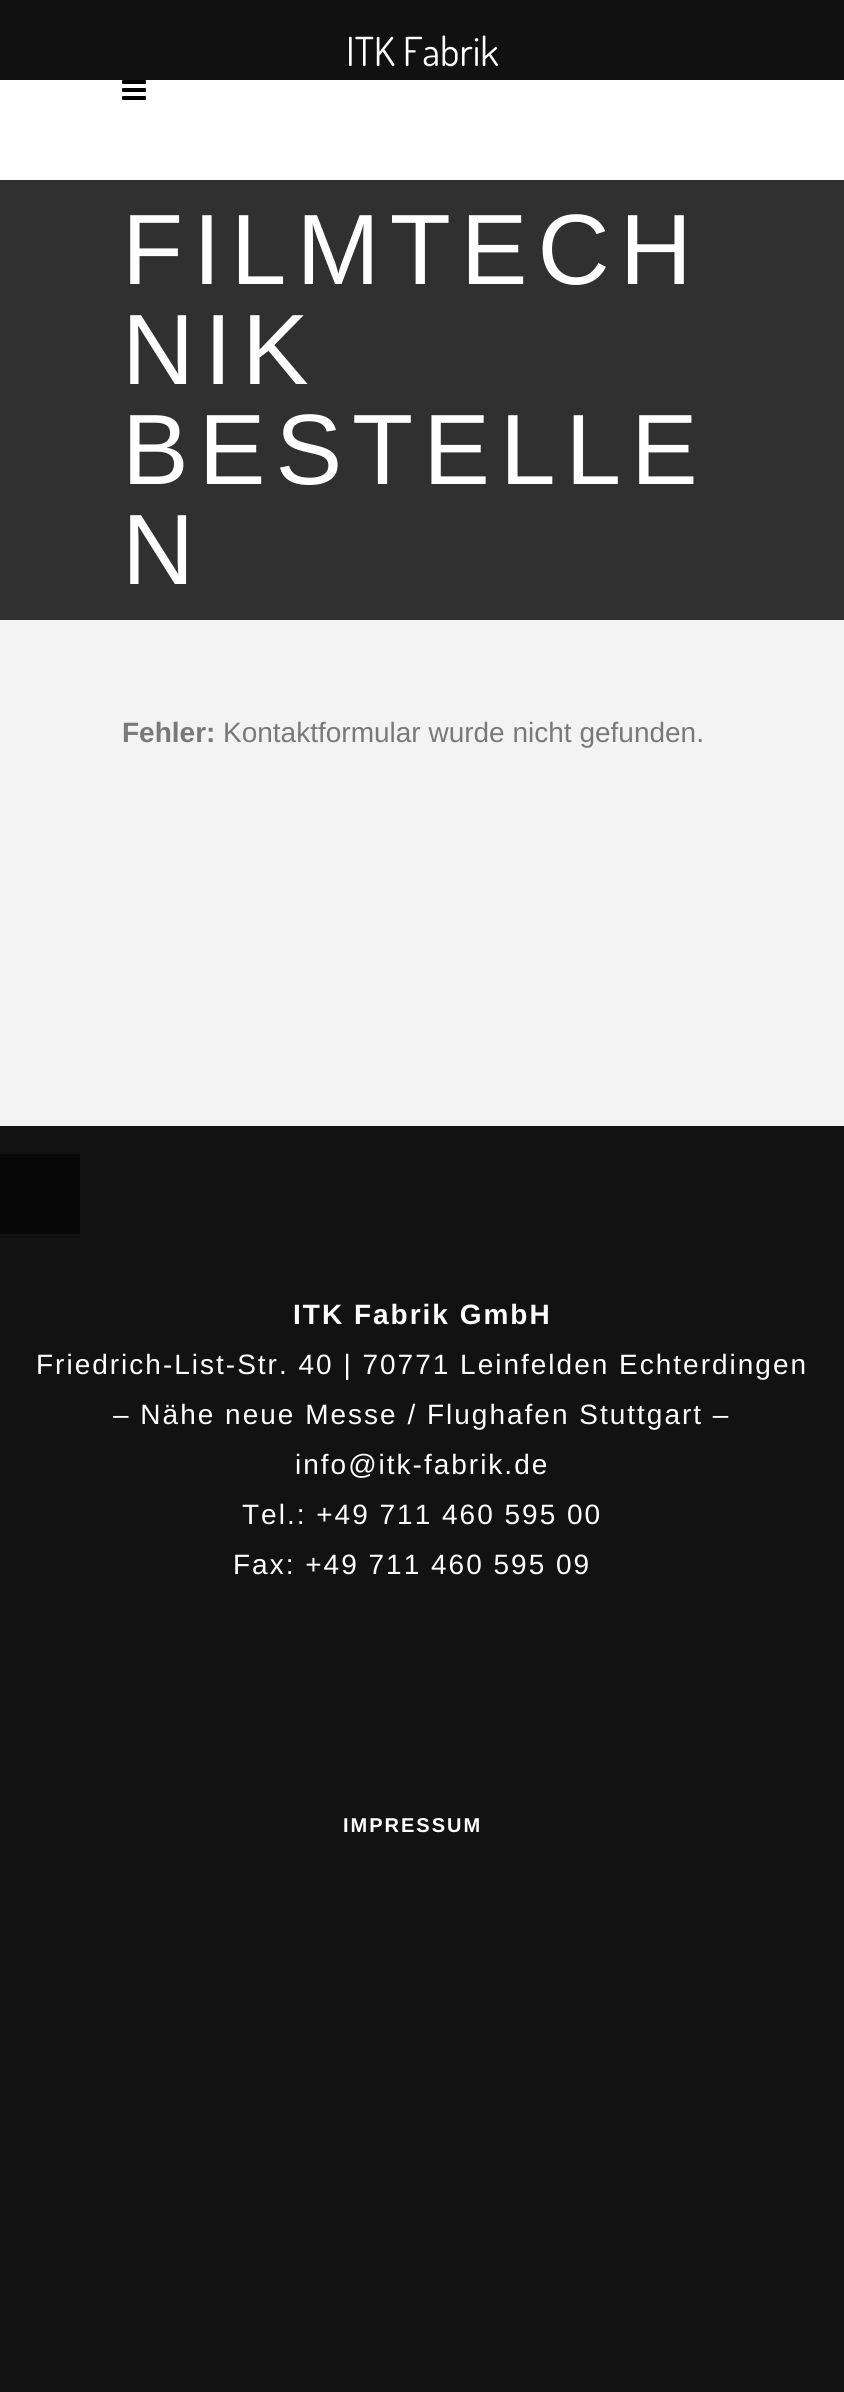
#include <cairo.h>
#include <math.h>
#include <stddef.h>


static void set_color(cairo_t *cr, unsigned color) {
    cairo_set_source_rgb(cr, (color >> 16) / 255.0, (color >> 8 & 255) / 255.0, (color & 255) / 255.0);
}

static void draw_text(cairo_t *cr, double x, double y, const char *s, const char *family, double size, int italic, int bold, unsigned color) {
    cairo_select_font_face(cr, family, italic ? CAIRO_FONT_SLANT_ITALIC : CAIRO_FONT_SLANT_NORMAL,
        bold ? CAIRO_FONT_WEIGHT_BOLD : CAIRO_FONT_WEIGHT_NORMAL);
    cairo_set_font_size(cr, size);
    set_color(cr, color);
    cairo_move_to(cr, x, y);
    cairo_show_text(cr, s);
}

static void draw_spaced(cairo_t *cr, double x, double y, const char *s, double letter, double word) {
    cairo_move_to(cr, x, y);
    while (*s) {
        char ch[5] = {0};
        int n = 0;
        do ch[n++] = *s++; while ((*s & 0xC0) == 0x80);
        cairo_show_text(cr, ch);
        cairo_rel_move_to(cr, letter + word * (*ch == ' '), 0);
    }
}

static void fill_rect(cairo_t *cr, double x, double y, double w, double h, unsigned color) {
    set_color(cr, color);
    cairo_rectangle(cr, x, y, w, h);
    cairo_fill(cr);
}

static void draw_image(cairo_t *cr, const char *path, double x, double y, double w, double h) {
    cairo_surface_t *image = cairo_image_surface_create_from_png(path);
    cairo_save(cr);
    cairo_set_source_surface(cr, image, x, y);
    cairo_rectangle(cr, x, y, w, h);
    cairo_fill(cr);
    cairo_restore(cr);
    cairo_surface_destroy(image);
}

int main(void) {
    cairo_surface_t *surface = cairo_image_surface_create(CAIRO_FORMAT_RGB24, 844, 2392);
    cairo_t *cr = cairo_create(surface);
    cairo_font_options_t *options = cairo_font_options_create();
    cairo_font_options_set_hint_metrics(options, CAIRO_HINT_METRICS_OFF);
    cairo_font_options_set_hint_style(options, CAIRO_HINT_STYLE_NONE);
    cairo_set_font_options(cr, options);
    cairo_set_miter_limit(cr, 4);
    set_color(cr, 0xF3F3F3);
    cairo_paint(cr);
    fill_rect(cr, 0, 0, 844, 80, 0x111111);
    draw_text(cr, 346, 66, "ITK Fabrik", "Dosis", 40, 0, 0, 0xFFFFFF);
    fill_rect(cr, 0, 80, 844, 100, 0xFFFFFF);
    draw_image(cr, "assets/img1.png", 122, 80, 24, 20);
    fill_rect(cr, 0, 180, 844, 440, 0x303030);
    cairo_select_font_face(cr, "Liberation Sans", CAIRO_FONT_SLANT_NORMAL, CAIRO_FONT_WEIGHT_NORMAL);
    cairo_set_font_size(cr, 100);
    set_color(cr, 0xFFFFFF);
    draw_spaced(cr, 122, 284, "FILMTECH", 10, 0);
    draw_spaced(cr, 122, 384, "NIK", 10, 0);
    draw_spaced(cr, 122, 484, "BESTELLE", 10, 0);
    draw_spaced(cr, 122, 584, "N", 10, 0);
    draw_text(cr, 122, 742, "Fehler:", "Liberation Sans", 28, 0, 1, 0x797979);
    draw_text(cr, 223, 742, "Kontaktformular wurde nicht gefunden.", "Liberation Sans", 28, 0, 0, 0x797979);
    fill_rect(cr, 0, 1126, 844, 1266, 0x121212);
    cairo_select_font_face(cr, "Liberation Sans", CAIRO_FONT_SLANT_NORMAL, CAIRO_FONT_WEIGHT_BOLD);
    set_color(cr, 0xFFFFFF);
    draw_spaced(cr, 293, 1324, "ITK Fabrik GmbH", 2, 0);
    cairo_select_font_face(cr, "Liberation Sans", CAIRO_FONT_SLANT_NORMAL, CAIRO_FONT_WEIGHT_NORMAL);
    draw_spaced(cr, 36, 1374, "Friedrich-List-Str. 40 | 70771 Leinfelden Echterdingen", 2, 0);
    draw_spaced(cr, 113, 1424, "– Nähe neue Messe / Flughafen Stuttgart –", 2, 0);
    draw_spaced(cr, 295, 1474, "info@itk-fabrik.de", 2, 0);
    draw_spaced(cr, 242, 1524, "Tel.: +49 711 460 595 00", 2, 0);
    draw_spaced(cr, 233, 1574, "Fax: +49 711 460 595 09", 2, 0);
    cairo_select_font_face(cr, "Liberation Sans", CAIRO_FONT_SLANT_NORMAL, CAIRO_FONT_WEIGHT_BOLD);
    cairo_set_font_size(cr, 20);
    draw_spaced(cr, 343, 1832, "IMPRESSUM", 2, 0);
    fill_rect(cr, 0, 1154, 80, 80, 0x070707);
    cairo_surface_write_to_png(surface, "output.png");
    cairo_font_options_destroy(options);
    cairo_destroy(cr);
    cairo_surface_destroy(surface);
    return 0;
}
